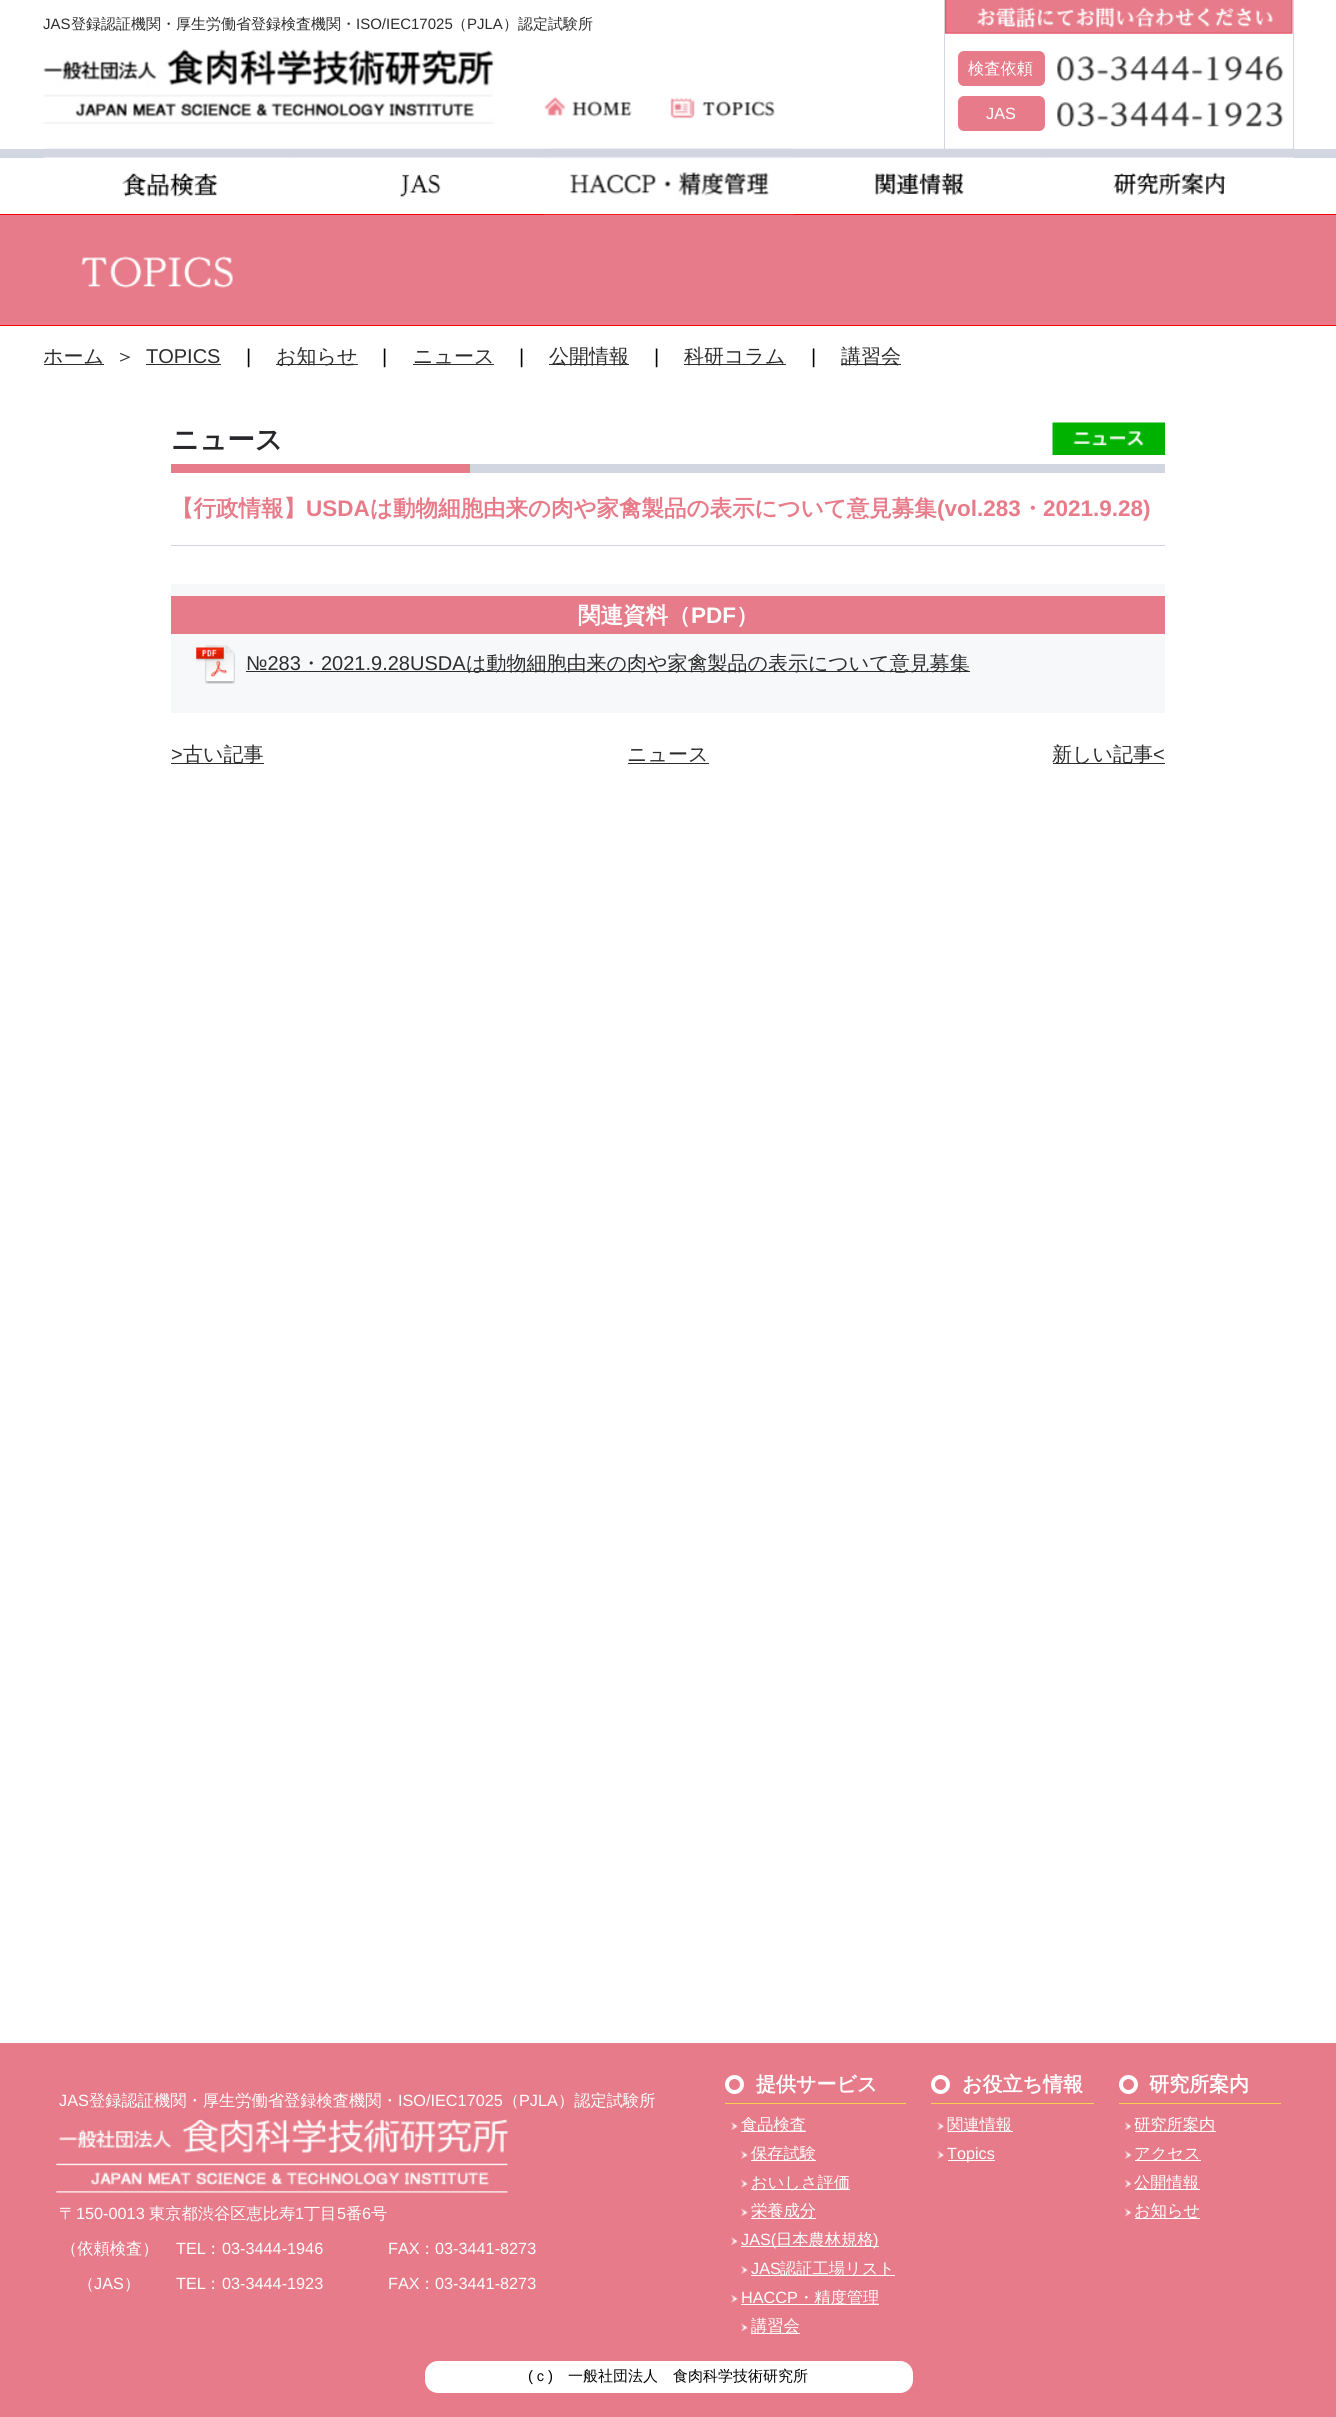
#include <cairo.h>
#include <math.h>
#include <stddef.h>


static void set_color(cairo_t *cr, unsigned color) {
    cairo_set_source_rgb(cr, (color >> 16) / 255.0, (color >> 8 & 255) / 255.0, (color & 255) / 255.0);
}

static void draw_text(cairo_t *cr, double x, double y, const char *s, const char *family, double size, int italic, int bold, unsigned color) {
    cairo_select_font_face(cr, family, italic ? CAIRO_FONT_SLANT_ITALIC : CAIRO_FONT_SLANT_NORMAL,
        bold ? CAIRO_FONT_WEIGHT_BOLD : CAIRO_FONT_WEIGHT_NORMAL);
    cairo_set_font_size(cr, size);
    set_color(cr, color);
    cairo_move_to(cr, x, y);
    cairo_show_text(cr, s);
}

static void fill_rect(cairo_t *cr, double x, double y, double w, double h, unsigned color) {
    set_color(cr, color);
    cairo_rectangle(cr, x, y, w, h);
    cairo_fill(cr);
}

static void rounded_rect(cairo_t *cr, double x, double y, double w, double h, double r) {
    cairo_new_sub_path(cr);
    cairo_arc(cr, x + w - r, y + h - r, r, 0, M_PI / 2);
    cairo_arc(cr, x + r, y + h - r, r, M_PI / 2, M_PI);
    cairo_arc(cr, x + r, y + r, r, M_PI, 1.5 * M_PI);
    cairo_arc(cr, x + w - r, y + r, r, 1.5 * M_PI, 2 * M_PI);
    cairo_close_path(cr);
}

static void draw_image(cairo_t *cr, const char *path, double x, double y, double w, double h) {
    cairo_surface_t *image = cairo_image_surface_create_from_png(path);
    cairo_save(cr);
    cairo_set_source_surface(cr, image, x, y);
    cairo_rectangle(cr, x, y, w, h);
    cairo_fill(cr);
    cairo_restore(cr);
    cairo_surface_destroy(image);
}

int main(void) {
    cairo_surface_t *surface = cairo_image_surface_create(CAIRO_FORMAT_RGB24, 1336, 2417);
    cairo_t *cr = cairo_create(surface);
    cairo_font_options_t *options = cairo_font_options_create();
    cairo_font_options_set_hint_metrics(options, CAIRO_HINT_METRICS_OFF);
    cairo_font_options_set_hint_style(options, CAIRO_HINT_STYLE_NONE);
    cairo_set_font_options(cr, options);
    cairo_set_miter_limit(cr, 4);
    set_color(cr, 0xFFFFFF);
    cairo_paint(cr);
    fill_rect(cr, 0, 149, 1336, 9, 0xD1D6E0);
    draw_text(cr, 43, 29, "JAS", "Liberation Sans", 15, 0, 0, 0x2D2D2D);
    draw_text(cr, 71, 29, "登録認証機関・厚生労働省登録検査機関・", "WenQuanYi Zen Hei Medium", 15, 0, 0, 0x2D2D2D);
    draw_text(cr, 356, 29, "ISO/IEC17025", "Liberation Sans", 15, 0, 0, 0x2D2D2D);
    draw_text(cr, 452, 29, "（", "WenQuanYi Zen Hei Medium", 15, 0, 0, 0x2D2D2D);
    draw_text(cr, 467, 29, "PJLA", "Liberation Sans", 15, 0, 0, 0x2D2D2D);
    draw_text(cr, 503, 29, "）認定試験所", "WenQuanYi Zen Hei Medium", 15, 0, 0, 0x2D2D2D);
    draw_image(cr, "assets/img1.png", 43, 49, 451, 75);
    draw_image(cr, "assets/img2.png", 544, 97, 88, 20);
    draw_image(cr, "assets/img3.png", 670, 98, 105, 21);
    fill_rect(cr, 1293, 0, 1, 149, 0xD1D6E0);
    fill_rect(cr, 944, 0, 1, 149, 0xD1D6E0);
    draw_image(cr, "assets/img4.png", 945, 0, 348, 34);
    set_color(cr, 0xE87B89);
    rounded_rect(cr, 958, 51, 87, 35, 6);
    cairo_fill(cr);
    draw_text(cr, 968, 74, "検査依頼", "WenQuanYi Zen Hei Medium", 16.25, 0, 0, 0xFFFFFF);
    draw_image(cr, "assets/img5.png", 1057, 56, 227, 26);
    set_color(cr, 0xE87B89);
    rounded_rect(cr, 958, 96, 87, 35, 6);
    cairo_fill(cr);
    draw_text(cr, 986, 119, "JAS", "Liberation Sans", 16.25, 0, 0, 0xFFFFFF);
    draw_image(cr, "assets/img6.png", 1057, 101, 227, 26);
    draw_image(cr, "assets/img7.png", 43, 148, 251, 49);
    draw_image(cr, "assets/img8.png", 294, 148, 250, 49);
    fill_rect(cr, 0, 214, 1336, 1, 0xFF0000);
    draw_image(cr, "assets/img9.png", 543, 148, 251, 67);
    draw_image(cr, "assets/img10.png", 794, 148, 250, 48);
    draw_image(cr, "assets/img11.png", 1044, 148, 250, 48);
    fill_rect(cr, 0, 215, 1336, 110, 0xE87B89);
    fill_rect(cr, 0, 325, 1336, 1, 0xFF0000);
    draw_image(cr, "assets/img12.png", 81, 256, 152, 32);
    fill_rect(cr, 44, 364, 60, 1, 0x2D2D2D);
    draw_text(cr, 43, 363, "ホーム", "WenQuanYi Zen Hei Medium", 20, 0, 0, 0x2D2D2D);
    draw_text(cr, 115, 363, "＞", "WenQuanYi Zen Hei Medium", 20, 0, 0, 0x2D2D2D);
    draw_text(cr, 146, 363, "TOPICS", "Liberation Sans", 20, 0, 0, 0x2D2D2D);
    fill_rect(cr, 146, 364, 75, 1, 0x2D2D2D);
    draw_text(cr, 246, 363, "|", "Liberation Sans", 20, 0, 0, 0x000000);
    fill_rect(cr, 276, 364, 82, 1, 0x2D2D2D);
    draw_text(cr, 276, 363, "お知らせ", "WenQuanYi Zen Hei Medium", 20, 0, 0, 0x2D2D2D);
    draw_text(cr, 382, 363, "|", "Liberation Sans", 20, 0, 0, 0x000000);
    draw_text(cr, 413, 363, "ニュース", "WenQuanYi Zen Hei Medium", 20, 0, 0, 0x2D2D2D);
    fill_rect(cr, 413, 364, 81, 1, 0x2D2D2D);
    draw_text(cr, 519, 363, "|", "Liberation Sans", 20, 0, 0, 0x000000);
    fill_rect(cr, 549, 364, 80, 1, 0x2D2D2D);
    draw_text(cr, 549, 363, "公開情報", "WenQuanYi Zen Hei Medium", 20, 0, 0, 0x2D2D2D);
    draw_text(cr, 654, 363, "|", "Liberation Sans", 20, 0, 0, 0x000000);
    fill_rect(cr, 684, 364, 102, 1, 0x2D2D2D);
    draw_text(cr, 684, 363, "科研コラム", "WenQuanYi Zen Hei Medium", 20, 0, 0, 0x2D2D2D);
    draw_text(cr, 811, 363, "|", "Liberation Sans", 20, 0, 0, 0x000000);
    fill_rect(cr, 841, 364, 60, 1, 0x2D2D2D);
    draw_text(cr, 841, 363, "講習会", "WenQuanYi Zen Hei Medium", 20, 0, 0, 0x2D2D2D);
    fill_rect(cr, 470, 464, 695, 9, 0xD1D6E0);
    draw_text(cr, 171, 449, "ニュース", "WenQuanYi Zen Hei", 27.5, 0, 1, 0x26262B);
    draw_image(cr, "assets/img13.png", 1052, 422, 113, 33);
    fill_rect(cr, 171, 464, 299, 9, 0xE87B89);
    fill_rect(cr, 171, 545, 994, 1, 0xD1D6E0);
    draw_text(cr, 171, 516, "【行政情報】", "WenQuanYi Zen Hei", 22.5, 0, 1, 0xE87B89);
    draw_text(cr, 306, 516, "USDA", "Liberation Sans", 22.5, 0, 1, 0xE87B89);
    draw_text(cr, 370, 516, "は動物細胞由来の肉や家禽製品の表示について意見募集", "WenQuanYi Zen Hei", 22.5, 0, 1, 0xE87B89);
    draw_text(cr, 937, 516, "(vol.283", "Liberation Sans", 22.5, 0, 1, 0xE87B89);
    draw_text(cr, 1021, 516, "・", "WenQuanYi Zen Hei", 22.5, 0, 1, 0xE87B89);
    draw_text(cr, 1043, 516, "2021.9.28)", "Liberation Sans", 22.5, 0, 1, 0xE87B89);
    fill_rect(cr, 171, 584, 994, 129, 0xF7F8F9);
    fill_rect(cr, 171, 596, 994, 38, 0xE87B89);
    draw_text(cr, 578, 623, "関連資料（", "WenQuanYi Zen Hei", 22.5, 0, 1, 0xFFFFFF);
    draw_text(cr, 691, 623, "PDF", "Liberation Sans", 22.5, 0, 1, 0xFFFFFF);
    draw_text(cr, 736, 623, "）", "WenQuanYi Zen Hei", 22.5, 0, 1, 0xFFFFFF);
    draw_image(cr, "assets/img14.png", 196, 645, 39, 39);
    draw_text(cr, 246, 670, "№283", "Liberation Sans", 20, 0, 0, 0x2D2D2D);
    fill_rect(cr, 246, 671, 724, 1, 0x2D2D2D);
    draw_text(cr, 301, 670, "・", "WenQuanYi Zen Hei Medium", 20, 0, 0, 0x2D2D2D);
    draw_text(cr, 321, 670, "2021.9.28USDA", "Liberation Sans", 20, 0, 0, 0x2D2D2D);
    draw_text(cr, 466, 670, "は動物細胞由来の肉や家禽製品の表示について意見募集", "WenQuanYi Zen Hei Medium", 20, 0, 0, 0x2D2D2D);
    draw_text(cr, 171, 761, ">", "Liberation Sans", 20, 0, 0, 0x2D2D2D);
    fill_rect(cr, 171, 763, 93, 1, 0x2D2D2D);
    draw_text(cr, 183, 761, "古い記事", "WenQuanYi Zen Hei Medium", 20, 0, 0, 0x2D2D2D);
    draw_text(cr, 627, 761, "ニュース", "WenQuanYi Zen Hei Medium", 20, 0, 0, 0x2D2D2D);
    fill_rect(cr, 628, 763, 81, 1, 0x2D2D2D);
    fill_rect(cr, 1053, 763, 112, 1, 0x2D2D2D);
    draw_text(cr, 1052, 761, "新しい記事", "WenQuanYi Zen Hei Medium", 20, 0, 0, 0x2D2D2D);
    draw_text(cr, 1153, 761, "<", "Liberation Sans", 20, 0, 0, 0x2D2D2D);
    fill_rect(cr, 0, 2043, 1336, 374, 0xE87B89);
    draw_text(cr, 59, 2106, "JAS", "Liberation Sans", 16.25, 0, 0, 0xFFFFFF);
    draw_text(cr, 89, 2106, "登録認証機関・厚生労働省登録検査機関・", "WenQuanYi Zen Hei Medium", 16.25, 0, 0, 0xFFFFFF);
    draw_text(cr, 398, 2106, "ISO/IEC17025", "Liberation Sans", 16.25, 0, 0, 0xFFFFFF);
    draw_text(cr, 503, 2106, "（", "WenQuanYi Zen Hei Medium", 16.25, 0, 0, 0xFFFFFF);
    draw_text(cr, 519, 2106, "PJLA", "Liberation Sans", 16.25, 0, 0, 0xFFFFFF);
    draw_text(cr, 558, 2106, "）認定試験所", "WenQuanYi Zen Hei Medium", 16.25, 0, 0, 0xFFFFFF);
    draw_image(cr, "assets/img15.png", 56, 2108, 461, 85);
    draw_text(cr, 59, 2219, "〒", "WenQuanYi Zen Hei Medium", 16.25, 0, 0, 0xFFFFFF);
    draw_text(cr, 76, 2219, "150-0013", "Liberation Sans", 16.25, 0, 0, 0xFFFFFF);
    draw_text(cr, 149, 2219, "東京都渋谷区恵比寿", "WenQuanYi Zen Hei Medium", 16.25, 0, 0, 0xFFFFFF);
    draw_text(cr, 295, 2219, "1", "Liberation Sans", 16.25, 0, 0, 0xFFFFFF);
    draw_text(cr, 304, 2219, "丁目", "WenQuanYi Zen Hei Medium", 16.25, 0, 0, 0xFFFFFF);
    draw_text(cr, 337, 2219, "5", "Liberation Sans", 16.25, 0, 0, 0xFFFFFF);
    draw_text(cr, 346, 2219, "番", "WenQuanYi Zen Hei Medium", 16.25, 0, 0, 0xFFFFFF);
    draw_text(cr, 362, 2219, "6", "Liberation Sans", 16.25, 0, 0, 0xFFFFFF);
    draw_text(cr, 371, 2219, "号", "WenQuanYi Zen Hei Medium", 16.25, 0, 0, 0xFFFFFF);
    draw_text(cr, 61, 2254, "（依頼検査）", "WenQuanYi Zen Hei Medium", 16.25, 0, 0, 0xFFFFFF);
    draw_text(cr, 176, 2254, "TEL", "Liberation Sans", 16.25, 0, 0, 0xFFFFFF);
    draw_text(cr, 205, 2254, "：", "WenQuanYi Zen Hei Medium", 16.25, 0, 0, 0xFFFFFF);
    draw_text(cr, 222, 2254, "03-3444-1946", "Liberation Sans", 16.25, 0, 0, 0xFFFFFF);
    draw_text(cr, 388, 2254, "FAX", "Liberation Sans", 16.25, 0, 0, 0xFFFFFF);
    draw_text(cr, 419, 2254, "：", "WenQuanYi Zen Hei Medium", 16.25, 0, 0, 0xFFFFFF);
    draw_text(cr, 435, 2254, "03-3441-8273", "Liberation Sans", 16.25, 0, 0, 0xFFFFFF);
    draw_text(cr, 78, 2289, "（", "WenQuanYi Zen Hei Medium", 16.25, 0, 0, 0xFFFFFF);
    draw_text(cr, 94, 2289, "JAS", "Liberation Sans", 16.25, 0, 0, 0xFFFFFF);
    draw_text(cr, 124, 2289, "）", "WenQuanYi Zen Hei Medium", 16.25, 0, 0, 0xFFFFFF);
    draw_text(cr, 176, 2289, "TEL", "Liberation Sans", 16.25, 0, 0, 0xFFFFFF);
    draw_text(cr, 205, 2289, "：", "WenQuanYi Zen Hei Medium", 16.25, 0, 0, 0xFFFFFF);
    draw_text(cr, 222, 2289, "03-3444-1923", "Liberation Sans", 16.25, 0, 0, 0xFFFFFF);
    draw_text(cr, 388, 2289, "FAX", "Liberation Sans", 16.25, 0, 0, 0xFFFFFF);
    draw_text(cr, 419, 2289, "：", "WenQuanYi Zen Hei Medium", 16.25, 0, 0, 0xFFFFFF);
    draw_text(cr, 435, 2289, "03-3441-8273", "Liberation Sans", 16.25, 0, 0, 0xFFFFFF);
    fill_rect(cr, 725, 2103, 181, 1, 0xFFD24D);
    cairo_new_path(cr);
    cairo_arc(cr, 734.5, 2084.5, 7.5, 0, 2 * M_PI);
    set_color(cr, 0xFFFFFF);
    cairo_set_line_width(cr, 4);
    cairo_stroke(cr);
    draw_text(cr, 756, 2091, "提供サービス", "WenQuanYi Zen Hei", 20, 0, 1, 0xFFFFFF);
    draw_image(cr, "assets/img16.png", 731, 2122, 7, 8);
    fill_rect(cr, 741, 2131, 65, 1, 0xFFFFFF);
    draw_text(cr, 741, 2130, "食品検査", "WenQuanYi Zen Hei Medium", 16.25, 0, 0, 0xFFFFFF);
    draw_image(cr, "assets/img17.png", 741, 2151, 7, 8);
    fill_rect(cr, 751, 2160, 65, 1, 0xFFFFFF);
    draw_text(cr, 751, 2159, "保存試験", "WenQuanYi Zen Hei Medium", 16.25, 0, 0, 0xFFFFFF);
    draw_image(cr, "assets/img18.png", 741, 2180, 7, 8);
    fill_rect(cr, 751, 2189, 99, 1, 0xFFFFFF);
    draw_text(cr, 751, 2188, "おいしさ評価", "WenQuanYi Zen Hei Medium", 16.25, 0, 0, 0xFFFFFF);
    draw_image(cr, "assets/img19.png", 741, 2208, 7, 9);
    fill_rect(cr, 751, 2218, 65, 1, 0xFFFFFF);
    draw_text(cr, 751, 2216, "栄養成分", "WenQuanYi Zen Hei Medium", 16.25, 0, 0, 0xFFFFFF);
    draw_image(cr, "assets/img16.png", 731, 2237, 7, 8);
    fill_rect(cr, 741, 2246, 138, 1, 0xFFFFFF);
    draw_text(cr, 741, 2245, "JAS(", "Liberation Sans", 16.25, 0, 0, 0xFFFFFF);
    draw_text(cr, 776, 2245, "日本農林規格", "WenQuanYi Zen Hei Medium", 16.25, 0, 0, 0xFFFFFF);
    draw_text(cr, 873, 2245, ")", "Liberation Sans", 16.25, 0, 0, 0xFFFFFF);
    draw_image(cr, "assets/img17.png", 741, 2266, 7, 8);
    draw_text(cr, 751, 2274, "JAS", "Liberation Sans", 16.25, 0, 0, 0xFFFFFF);
    fill_rect(cr, 751, 2275, 144, 1, 0xFFFFFF);
    draw_text(cr, 780, 2274, "認証工場リスト", "WenQuanYi Zen Hei Medium", 16.25, 0, 0, 0xFFFFFF);
    draw_image(cr, "assets/img20.png", 731, 2295, 7, 8);
    draw_text(cr, 741, 2303, "HACCP", "Liberation Sans", 16.25, 0, 0, 0xFFFFFF);
    fill_rect(cr, 741, 2304, 138, 1, 0xFFFFFF);
    draw_text(cr, 798, 2303, "・精度管理", "WenQuanYi Zen Hei Medium", 16.25, 0, 0, 0xFFFFFF);
    draw_image(cr, "assets/img19.png", 741, 2323, 7, 9);
    fill_rect(cr, 751, 2333, 49, 1, 0xFFFFFF);
    draw_text(cr, 751, 2331, "講習会", "WenQuanYi Zen Hei Medium", 16.25, 0, 0, 0xFFFFFF);
    fill_rect(cr, 931, 2103, 163, 1, 0xFFD24D);
    cairo_new_path(cr);
    cairo_arc(cr, 940.5, 2084.5, 7.5, 0, 2 * M_PI);
    set_color(cr, 0xFFFFFF);
    cairo_stroke(cr);
    draw_text(cr, 962, 2091, "お役立ち情報", "WenQuanYi Zen Hei", 20, 0, 1, 0xFFFFFF);
    draw_image(cr, "assets/img21.png", 937, 2122, 7, 8);
    fill_rect(cr, 948, 2131, 65, 1, 0xFFFFFF);
    draw_text(cr, 947, 2130, "関連情報", "WenQuanYi Zen Hei Medium", 16.25, 0, 0, 0xFFFFFF);
    draw_image(cr, "assets/img22.png", 937, 2151, 7, 8);
    fill_rect(cr, 948, 2160, 47, 1, 0xFFFFFF);
    draw_text(cr, 947, 2159, "Topics", "Liberation Sans", 16.25, 0, 0, 0xFFFFFF);
    fill_rect(cr, 1119, 2103, 162, 1, 0xFFD24D);
    cairo_new_path(cr);
    cairo_arc(cr, 1128.5, 2084.5, 7.5, 0, 2 * M_PI);
    set_color(cr, 0xFFFFFF);
    cairo_stroke(cr);
    draw_text(cr, 1149, 2091, "研究所案内", "WenQuanYi Zen Hei", 20, 0, 1, 0xFFFFFF);
    draw_image(cr, "assets/img23.png", 1125, 2122, 7, 8);
    fill_rect(cr, 1135, 2131, 81, 1, 0xFFFFFF);
    draw_text(cr, 1134, 2130, "研究所案内", "WenQuanYi Zen Hei Medium", 16.25, 0, 0, 0xFFFFFF);
    draw_image(cr, "assets/img24.png", 1125, 2151, 7, 8);
    fill_rect(cr, 1135, 2160, 66, 1, 0xFFFFFF);
    draw_text(cr, 1134, 2159, "アクセス", "WenQuanYi Zen Hei Medium", 16.25, 0, 0, 0xFFFFFF);
    draw_image(cr, "assets/img25.png", 1125, 2180, 7, 8);
    fill_rect(cr, 1135, 2189, 65, 1, 0xFFFFFF);
    draw_text(cr, 1134, 2188, "公開情報", "WenQuanYi Zen Hei Medium", 16.25, 0, 0, 0xFFFFFF);
    draw_image(cr, "assets/img26.png", 1125, 2208, 7, 9);
    fill_rect(cr, 1135, 2218, 65, 1, 0xFFFFFF);
    draw_text(cr, 1134, 2216, "お知らせ", "WenQuanYi Zen Hei Medium", 16.25, 0, 0, 0xFFFFFF);
    rounded_rect(cr, 425, 2361, 488, 32, 13);
    cairo_fill(cr);
    draw_text(cr, 528, 2381, "(", "Liberation Sans", 15, 0, 0, 0x000000);
    draw_text(cr, 533, 2381, "ｃ", "WenQuanYi Zen Hei Medium", 15, 0, 0, 0x000000);
    draw_text(cr, 548, 2381, ")", "Liberation Sans", 15, 0, 0, 0x000000);
    draw_text(cr, 568, 2381, "一般社団法人　食肉科学技術研究所", "WenQuanYi Zen Hei Medium", 15, 0, 0, 0x000000);
    cairo_surface_write_to_png(surface, "output.png");
    cairo_font_options_destroy(options);
    cairo_destroy(cr);
    cairo_surface_destroy(surface);
    return 0;
}
